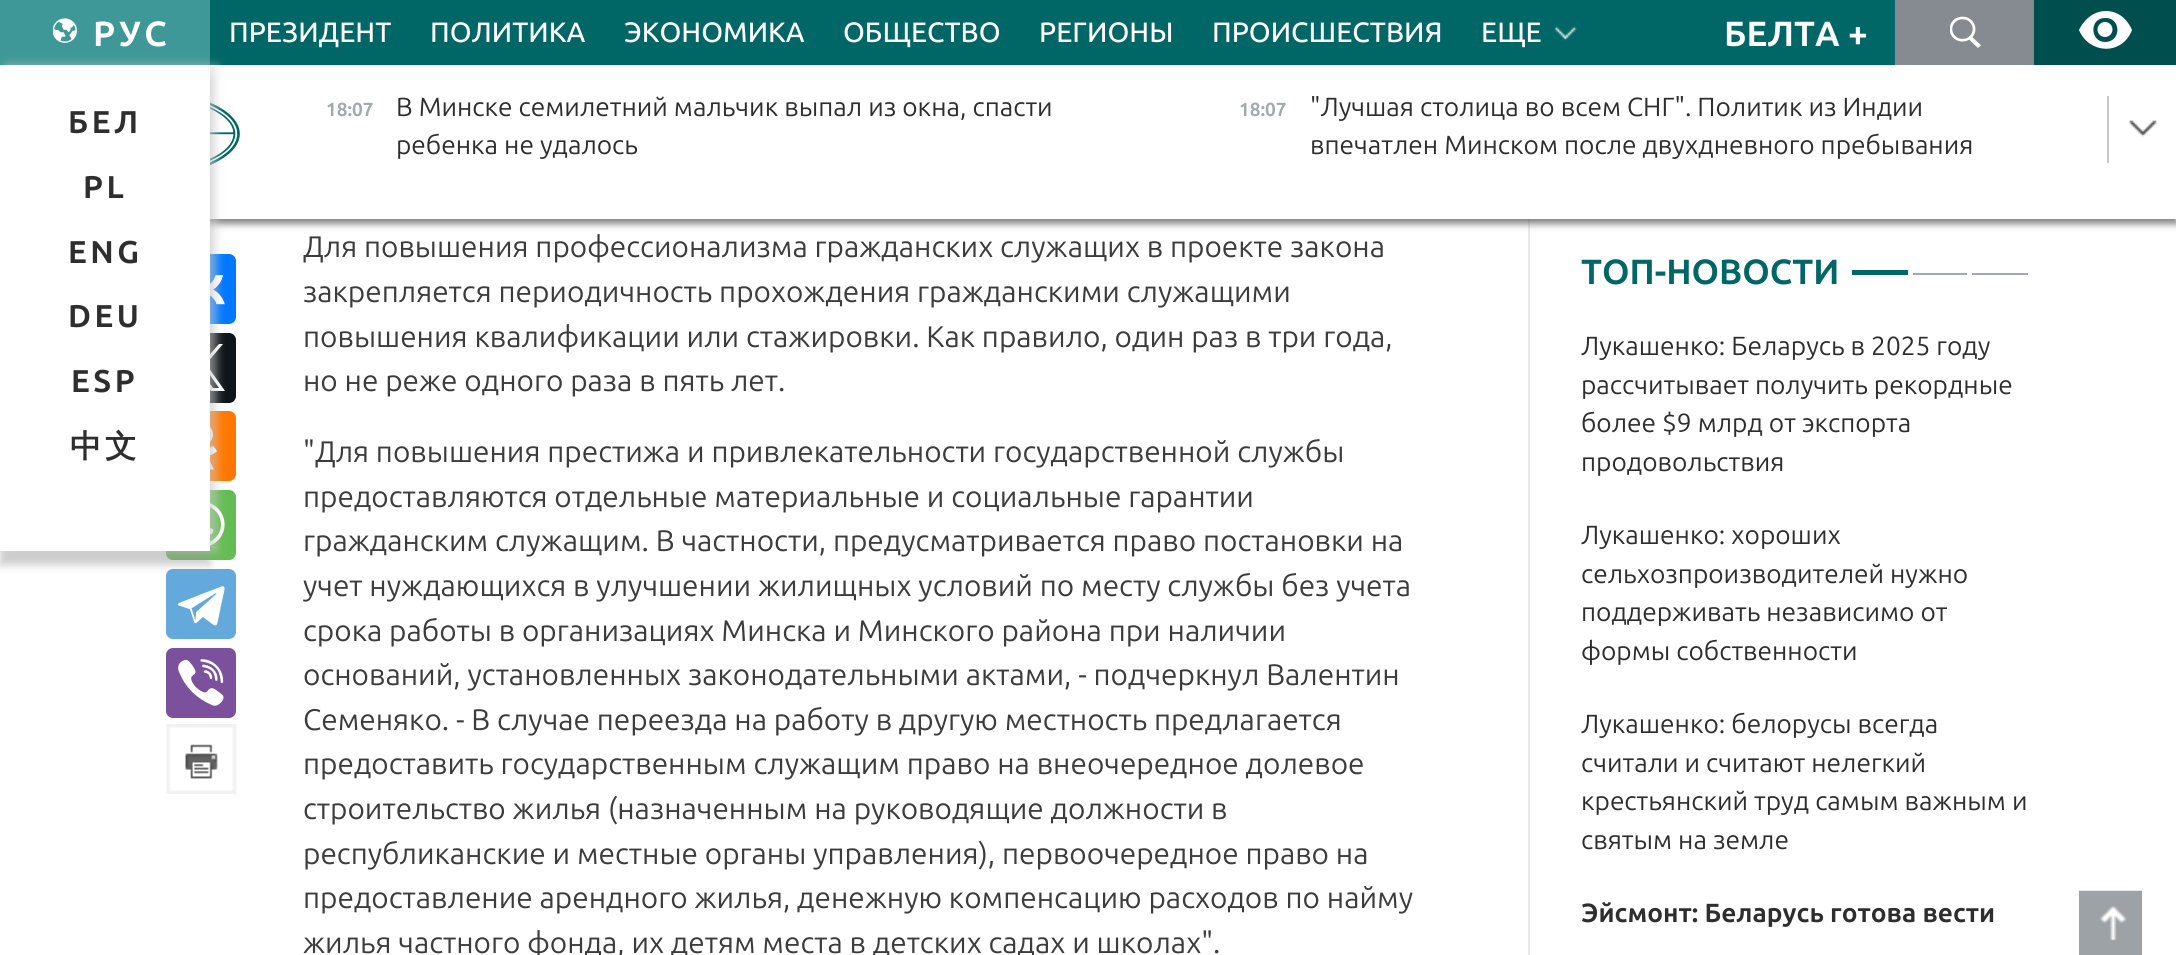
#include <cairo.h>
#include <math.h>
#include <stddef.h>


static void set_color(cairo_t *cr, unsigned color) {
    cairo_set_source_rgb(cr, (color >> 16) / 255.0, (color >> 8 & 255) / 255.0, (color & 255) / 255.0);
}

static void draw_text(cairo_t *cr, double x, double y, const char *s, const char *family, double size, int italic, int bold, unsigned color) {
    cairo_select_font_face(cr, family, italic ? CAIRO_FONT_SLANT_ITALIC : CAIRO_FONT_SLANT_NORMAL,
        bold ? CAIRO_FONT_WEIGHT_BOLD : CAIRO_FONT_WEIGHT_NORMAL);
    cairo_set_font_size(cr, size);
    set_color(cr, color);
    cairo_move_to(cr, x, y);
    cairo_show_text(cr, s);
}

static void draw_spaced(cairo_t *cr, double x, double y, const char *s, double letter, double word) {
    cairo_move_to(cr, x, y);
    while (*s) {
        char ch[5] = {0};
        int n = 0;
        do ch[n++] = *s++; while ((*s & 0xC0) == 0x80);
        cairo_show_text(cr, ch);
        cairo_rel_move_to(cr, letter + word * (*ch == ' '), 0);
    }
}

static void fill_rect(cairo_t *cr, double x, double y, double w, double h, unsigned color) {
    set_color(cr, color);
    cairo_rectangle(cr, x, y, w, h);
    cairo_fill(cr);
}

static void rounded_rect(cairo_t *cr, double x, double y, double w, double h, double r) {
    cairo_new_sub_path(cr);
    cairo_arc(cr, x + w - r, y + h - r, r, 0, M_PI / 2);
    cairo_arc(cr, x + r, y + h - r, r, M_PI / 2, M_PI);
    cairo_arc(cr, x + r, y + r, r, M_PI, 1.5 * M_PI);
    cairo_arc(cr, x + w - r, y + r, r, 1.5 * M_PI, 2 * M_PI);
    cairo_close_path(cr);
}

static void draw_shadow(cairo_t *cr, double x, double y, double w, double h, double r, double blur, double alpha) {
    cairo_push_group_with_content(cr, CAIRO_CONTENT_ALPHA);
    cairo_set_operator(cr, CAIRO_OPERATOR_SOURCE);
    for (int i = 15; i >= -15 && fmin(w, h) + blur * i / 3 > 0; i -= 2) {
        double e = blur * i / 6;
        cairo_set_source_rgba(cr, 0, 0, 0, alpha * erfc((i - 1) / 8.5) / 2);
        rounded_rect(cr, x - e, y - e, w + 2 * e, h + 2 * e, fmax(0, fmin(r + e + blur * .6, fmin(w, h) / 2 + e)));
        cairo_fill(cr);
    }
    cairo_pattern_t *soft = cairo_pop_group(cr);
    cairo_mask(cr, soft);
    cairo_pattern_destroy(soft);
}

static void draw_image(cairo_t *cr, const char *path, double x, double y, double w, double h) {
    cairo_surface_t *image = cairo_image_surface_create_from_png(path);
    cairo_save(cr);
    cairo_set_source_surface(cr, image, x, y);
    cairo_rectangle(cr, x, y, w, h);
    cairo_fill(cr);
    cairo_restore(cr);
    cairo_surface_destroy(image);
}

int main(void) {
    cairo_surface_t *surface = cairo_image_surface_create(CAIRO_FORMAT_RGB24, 2176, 955);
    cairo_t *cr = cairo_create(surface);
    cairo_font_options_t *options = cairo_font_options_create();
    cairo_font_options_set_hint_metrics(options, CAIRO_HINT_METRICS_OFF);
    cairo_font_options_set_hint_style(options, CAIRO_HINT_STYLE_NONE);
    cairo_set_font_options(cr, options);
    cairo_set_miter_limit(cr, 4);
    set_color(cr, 0xFFFFFF);
    cairo_paint(cr);
    fill_rect(cr, 1528, 219, 2, 736, 0xE6EAED);
    set_color(cr, 0x646464);
    draw_shadow(cr, 0, 70, 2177, 154, 0, 3.5, 0.8);
    fill_rect(cr, 210, 0, 1685, 65, 0x006666);
    fill_rect(cr, 0, 0, 210, 65, 0x3F9898);
    draw_image(cr, "assets/img1.png", 53, 18, 24, 25);
    cairo_select_font_face(cr, "Ubuntu", CAIRO_FONT_SLANT_NORMAL, CAIRO_FONT_WEIGHT_BOLD);
    cairo_set_font_size(cr, 35);
    set_color(cr, 0xFFFFFF);
    draw_spaced(cr, 93, 46, "РУС", 3.5, 0);
    fill_rect(cr, 210, 65, 1966, 154, 0xFFFFFF);
    draw_image(cr, "assets/img4.png", 210, 102, 30, 63);
    set_color(cr, 0x0077FF);
    rounded_rect(cr, 166, 254, 70, 70, 7);
    cairo_fill(cr);
    draw_image(cr, "assets/img6.png", 210, 275, 15, 30);
    set_color(cr, 0x0F1419);
    rounded_rect(cr, 166, 333, 70, 70, 7);
    cairo_fill(cr);
    set_color(cr, 0xFFFFFF);
    cairo_new_path(cr);
    cairo_move_to(cr, 206, 364);
    cairo_line_to(cr, 223, 344);
    cairo_line_to(cr, 219, 344);
    cairo_line_to(cr, 204, 361);
    cairo_line_to(cr, 192, 344);
    cairo_line_to(cr, 178, 344);
    cairo_line_to(cr, 196, 370);
    cairo_line_to(cr, 178, 391);
    cairo_line_to(cr, 182, 391);
    cairo_line_to(cr, 198, 373);
    cairo_line_to(cr, 211, 391);
    cairo_line_to(cr, 225, 391);
    cairo_close_path(cr);
    cairo_move_to(cr, 200, 370);
    cairo_line_to(cr, 184, 347);
    cairo_line_to(cr, 190, 347);
    cairo_line_to(cr, 219, 388);
    cairo_line_to(cr, 213, 388);
    cairo_close_path(cr);
    cairo_fill(cr);
    set_color(cr, 0xFF7700);
    rounded_rect(cr, 166, 411, 70, 70, 7);
    cairo_fill(cr);
    draw_image(cr, "assets/img7.png", 210, 427, 7, 43);
    set_color(cr, 0x65BC54);
    rounded_rect(cr, 166, 490, 70, 70, 7);
    cairo_fill(cr);
    draw_image(cr, "assets/img8.png", 210, 503, 15, 43);
    set_color(cr, 0x64A9DC);
    rounded_rect(cr, 166, 569, 70, 70, 7);
    cairo_fill(cr);
    set_color(cr, 0x989898);
    draw_shadow(cr, 0, 79, 210, 486, 0, 4.5, 0.5);
    set_color(cr, 0xD4D4D4);
    draw_shadow(cr, 7, 65, 210, 486, 0, 4.5, 0.5);
    fill_rect(cr, 0, 65, 210, 486, 0xFFFFFF);
    cairo_set_font_size(cr, 31.5);
    set_color(cr, 0x2E2E2E);
    draw_spaced(cr, 68, 133, "БЕЛ", 3.5, 0);
    draw_spaced(cr, 83, 198, "PL", 3.5, 0);
    draw_spaced(cr, 68, 263, "ENG", 3.5, 0);
    draw_spaced(cr, 68, 327, "DEU", 3.5, 0);
    draw_spaced(cr, 71, 392, "ESP", 3.5, 0);
    cairo_select_font_face(cr, "WenQuanYi Zen Hei", CAIRO_FONT_SLANT_NORMAL, CAIRO_FONT_WEIGHT_BOLD);
    draw_spaced(cr, 70, 457, "中文", 3.5, 0);
    draw_text(cr, 229, 42, "ПРЕЗИДЕНТ", "Ubuntu Medium", 28, 0, 0, 0xFFFFFF);
    draw_text(cr, 430, 42, "ПОЛИТИКА", "Ubuntu Medium", 28, 0, 0, 0xFFFFFF);
    draw_text(cr, 624, 42, "ЭКОНОМИКА", "Ubuntu Medium", 28, 0, 0, 0xFFFFFF);
    draw_text(cr, 843, 42, "ОБЩЕСТВО", "Ubuntu Medium", 28, 0, 0, 0xFFFFFF);
    draw_text(cr, 1039, 42, "РЕГИОНЫ", "Ubuntu Medium", 28, 0, 0, 0xFFFFFF);
    draw_text(cr, 1212, 42, "ПРОИСШЕСТВИЯ", "Ubuntu Medium", 28, 0, 0, 0xFFFFFF);
    draw_text(cr, 1481, 42, "ЕЩЕ", "Ubuntu Medium", 28, 0, 0, 0xFFFFFF);
    draw_image(cr, "assets/img2.png", 1554, 26, 23, 15);
    draw_text(cr, 1724, 46, "БЕЛТА +", "Ubuntu", 35, 0, 1, 0xFFFFFF);
    fill_rect(cr, 1895, 0, 139, 65, 0x858B90);
    draw_image(cr, "assets/img3.png", 1950, 16, 31, 32);
    fill_rect(cr, 2034, 0, 142, 65, 0x004E4E);
    set_color(cr, 0xFFFFFF);
    cairo_new_path(cr);
    cairo_move_to(cr, 2106, 11);
    cairo_curve_to(cr, 2087, 11, 2079, 30, 2079, 30);
    cairo_curve_to(cr, 2089, 54, 2122, 56, 2132, 30);
    cairo_curve_to(cr, 2132, 30, 2125, 11, 2106, 11);
    cairo_close_path(cr);
    cairo_move_to(cr, 2105, 42);
    cairo_curve_to(cr, 2090, 42, 2089, 18, 2105, 18);
    cairo_curve_to(cr, 2121, 17, 2122, 42, 2105, 42);
    cairo_close_path(cr);
    cairo_fill(cr);
    cairo_arc(cr, 2105, 29.5, 7.5, 0, 2 * M_PI);
    cairo_fill(cr);
    draw_text(cr, 326, 116, "18:07", "Ubuntu", 19, 0, 1, 0xA3A9AD);
    draw_text(cr, 396, 116, "В Минске семилетний мальчик выпал из окна, спасти", "Ubuntu", 26.25, 0, 0, 0x2E2E2E);
    draw_text(cr, 396, 154, "ребенка не удалось", "Ubuntu", 26.25, 0, 0, 0x2E2E2E);
    draw_text(cr, 1239, 116, "18:07", "Ubuntu", 19, 0, 1, 0xA3A9AD);
    draw_text(cr, 1310, 116, "\"Лучшая столица во всем СНГ\". Политик из Индии", "Ubuntu", 26.25, 0, 0, 0x2E2E2E);
    draw_text(cr, 1310, 154, "впечатлен Минском после двухдневного пребывания", "Ubuntu", 26.25, 0, 0, 0x2E2E2E);
    draw_image(cr, "assets/img5.png", 2129, 120, 28, 17);
    fill_rect(cr, 2107, 96, 2, 67, 0xC8C8C8);
    draw_image(cr, "assets/img9.png", 177, 586, 48, 40);
    set_color(cr, 0x7B519D);
    rounded_rect(cr, 166, 648, 70, 70, 7);
    cairo_fill(cr);
    draw_image(cr, "assets/img10.png", 178, 659, 46, 47);
    draw_image(cr, "assets/img11.png", 166, 724, 71, 70);
    draw_text(cr, 303, 257, "Для повышения профессионализма гражданских служащих в проекте закона", "Ubuntu", 29.75, 0, 0, 0x3C3C3C);
    draw_text(cr, 303, 302, "закрепляется периодичность прохождения гражданскими служащими", "Ubuntu", 29.75, 0, 0, 0x3C3C3C);
    draw_text(cr, 303, 347, "повышения квалификации или стажировки. Как правило, один раз в три года,", "Ubuntu", 29.75, 0, 0, 0x3C3C3C);
    draw_text(cr, 303, 391, "но не реже одного раза в пять лет.", "Ubuntu", 29.75, 0, 0, 0x3C3C3C);
    draw_text(cr, 303, 462, "\"Для повышения престижа и привлекательности государственной службы", "Ubuntu", 29.75, 0, 0, 0x3C3C3C);
    draw_text(cr, 303, 507, "предоставляются отдельные материальные и социальные гарантии", "Ubuntu", 29.75, 0, 0, 0x3C3C3C);
    draw_text(cr, 303, 551, "гражданским служащим. В частности, предусматривается право постановки на", "Ubuntu", 29.75, 0, 0, 0x3C3C3C);
    draw_text(cr, 303, 596, "учет нуждающихся в улучшении жилищных условий по месту службы без учета", "Ubuntu", 29.75, 0, 0, 0x3C3C3C);
    draw_text(cr, 303, 641, "срока работы в организациях Минска и Минского района при наличии", "Ubuntu", 29.75, 0, 0, 0x3C3C3C);
    draw_text(cr, 303, 685, "оснований, установленных законодательными актами, - подчеркнул Валентин", "Ubuntu", 29.75, 0, 0, 0x3C3C3C);
    draw_text(cr, 303, 730, "Семеняко. - В случае переезда на работу в другую местность предлагается", "Ubuntu", 29.75, 0, 0, 0x3C3C3C);
    draw_text(cr, 303, 774, "предоставить государственным служащим право на внеочередное долевое", "Ubuntu", 29.75, 0, 0, 0x3C3C3C);
    draw_text(cr, 303, 819, "строительство жилья (назначенным на руководящие должности в", "Ubuntu", 29.75, 0, 0, 0x3C3C3C);
    draw_text(cr, 303, 864, "республиканские и местные органы управления), первоочередное право на", "Ubuntu", 29.75, 0, 0, 0x3C3C3C);
    draw_text(cr, 303, 908, "предоставление арендного жилья, денежную компенсацию расходов по найму", "Ubuntu", 29.75, 0, 0, 0x3C3C3C);
    draw_text(cr, 303, 953, "жилья частного фонда, их детям места в детских садах и школах\".", "Ubuntu", 29.75, 0, 0, 0x3C3C3C);
    draw_text(cr, 1581, 284, "ТОП-НОВОСТИ", "Ubuntu", 35, 0, 1, 0x006666);
    fill_rect(cr, 1852, 270, 56, 5, 0x006666);
    fill_rect(cr, 1913, 273, 54, 2, 0xA3A9AD);
    fill_rect(cr, 1972, 273, 56, 2, 0xA3A9AD);
    draw_text(cr, 1581, 355, "Лукашенко: Беларусь в 2025 году", "Ubuntu", 26.25, 0, 0, 0x2E2E2E);
    draw_text(cr, 1581, 394, "рассчитывает получить рекордные", "Ubuntu", 26.25, 0, 0, 0x2E2E2E);
    draw_text(cr, 1581, 432, "более $9 млрд от экспорта", "Ubuntu", 26.25, 0, 0, 0x2E2E2E);
    draw_text(cr, 1581, 471, "продовольствия", "Ubuntu", 26.25, 0, 0, 0x2E2E2E);
    draw_text(cr, 1581, 544, "Лукашенко: хороших", "Ubuntu", 26.25, 0, 0, 0x2E2E2E);
    draw_text(cr, 1581, 583, "сельхозпроизводителей нужно", "Ubuntu", 26.25, 0, 0, 0x2E2E2E);
    draw_text(cr, 1581, 621, "поддерживать независимо от", "Ubuntu", 26.25, 0, 0, 0x2E2E2E);
    draw_text(cr, 1581, 660, "формы собственности", "Ubuntu", 26.25, 0, 0, 0x2E2E2E);
    draw_text(cr, 1581, 733, "Лукашенко: белорусы всегда", "Ubuntu", 26.25, 0, 0, 0x2E2E2E);
    draw_text(cr, 1581, 772, "считали и считают нелегкий", "Ubuntu", 26.25, 0, 0, 0x2E2E2E);
    draw_text(cr, 1581, 810, "крестьянский труд самым важным и", "Ubuntu", 26.25, 0, 0, 0x2E2E2E);
    draw_text(cr, 1581, 849, "святым на земле", "Ubuntu", 26.25, 0, 0, 0x2E2E2E);
    draw_text(cr, 1581, 922, "Эйсмонт: Беларусь готова вести", "Ubuntu", 26.25, 0, 1, 0x2E2E2E);
    draw_image(cr, "assets/img12.png", 2079, 890, 63, 65);
    cairo_surface_write_to_png(surface, "output.png");
    cairo_font_options_destroy(options);
    cairo_destroy(cr);
    cairo_surface_destroy(surface);
    return 0;
}
